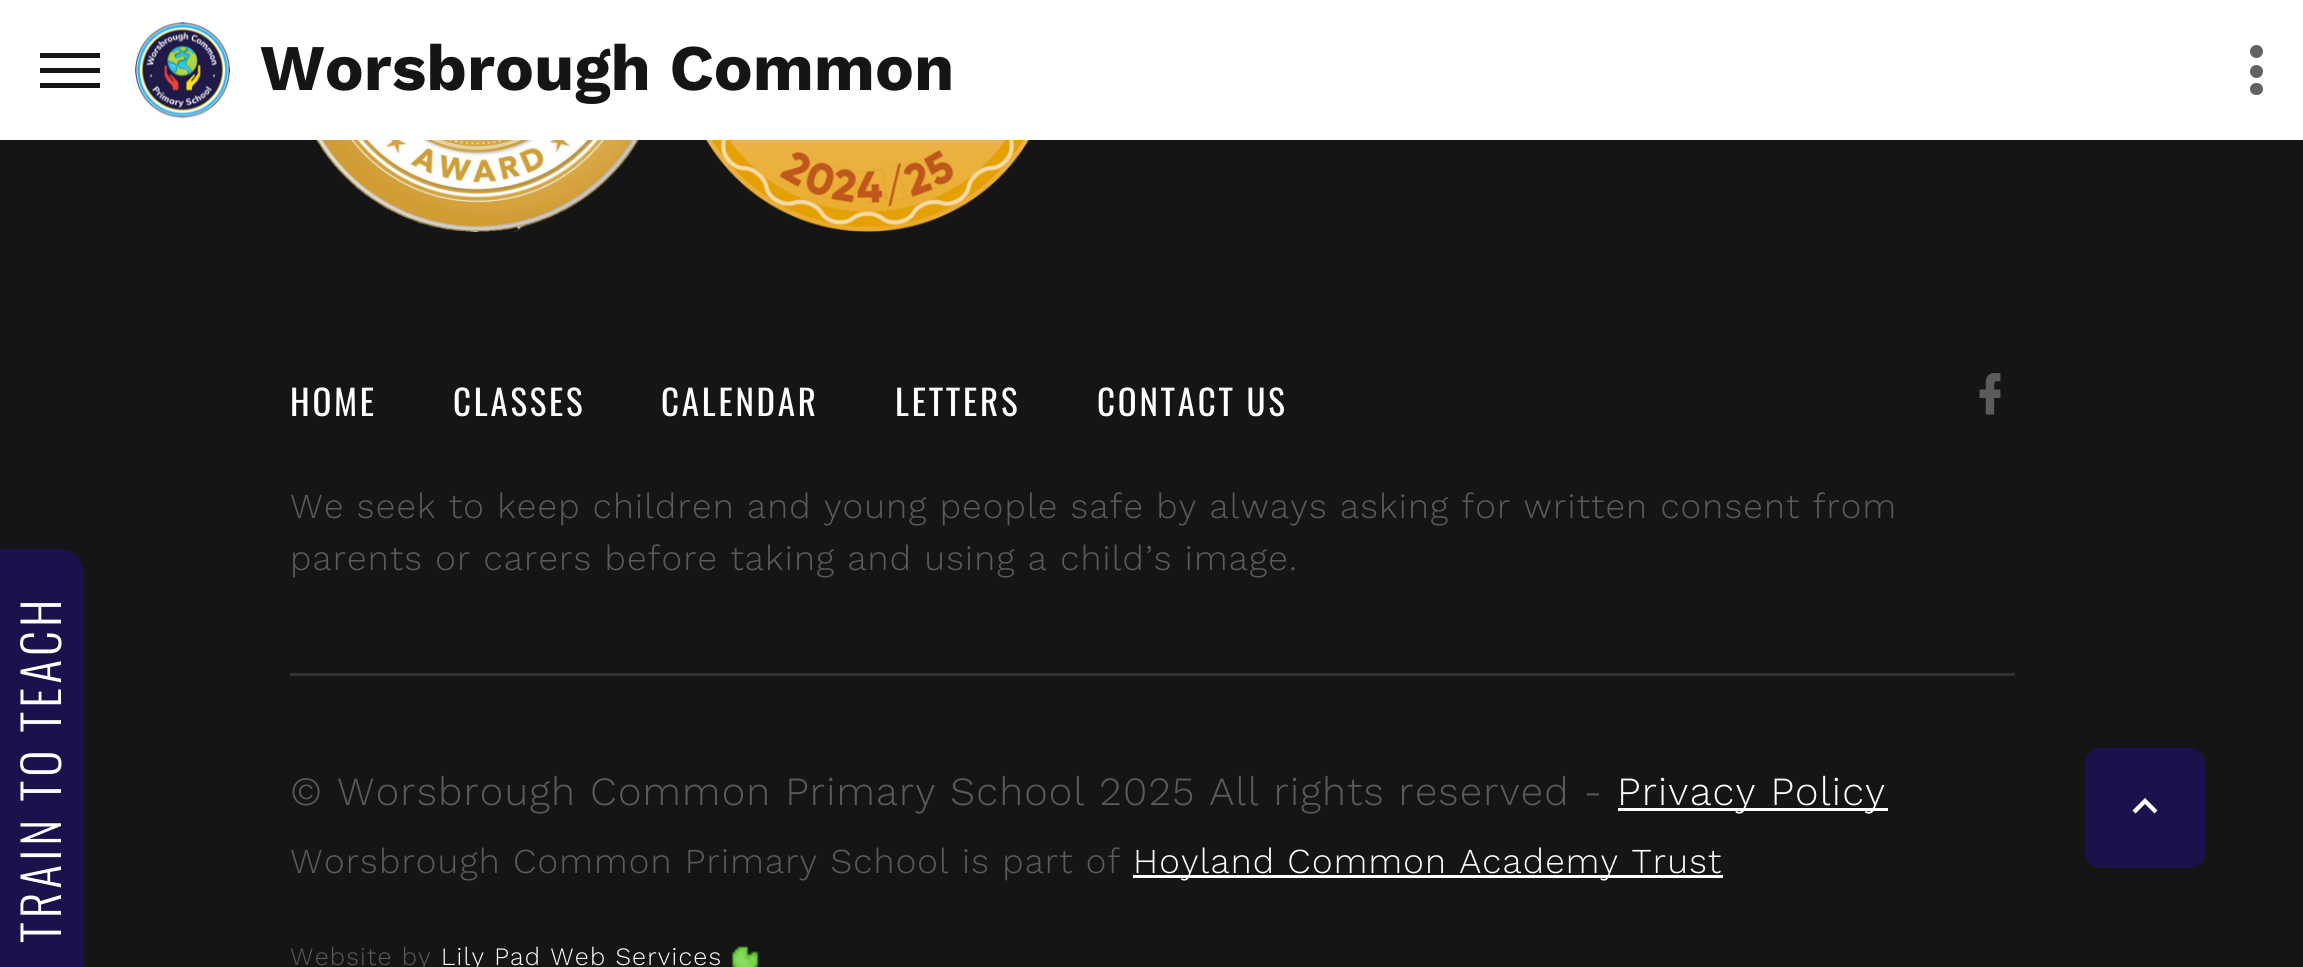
#include <cairo.h>
#include <math.h>
#include <stddef.h>


static void set_color(cairo_t *cr, unsigned color) {
    cairo_set_source_rgb(cr, (color >> 16) / 255.0, (color >> 8 & 255) / 255.0, (color & 255) / 255.0);
}

static void draw_text(cairo_t *cr, double x, double y, const char *s, const char *family, double size, int italic, int bold, unsigned color) {
    cairo_select_font_face(cr, family, italic ? CAIRO_FONT_SLANT_ITALIC : CAIRO_FONT_SLANT_NORMAL,
        bold ? CAIRO_FONT_WEIGHT_BOLD : CAIRO_FONT_WEIGHT_NORMAL);
    cairo_set_font_size(cr, size);
    set_color(cr, color);
    cairo_move_to(cr, x, y);
    cairo_show_text(cr, s);
}

static void draw_spaced(cairo_t *cr, double x, double y, const char *s, double letter, double word) {
    cairo_move_to(cr, x, y);
    while (*s) {
        char ch[5] = {0};
        int n = 0;
        do ch[n++] = *s++; while ((*s & 0xC0) == 0x80);
        cairo_show_text(cr, ch);
        cairo_rel_move_to(cr, letter + word * (*ch == ' '), 0);
    }
}

static void fill_rect(cairo_t *cr, double x, double y, double w, double h, unsigned color) {
    set_color(cr, color);
    cairo_rectangle(cr, x, y, w, h);
    cairo_fill(cr);
}

static void rounded_rect(cairo_t *cr, double x, double y, double w, double h, double r) {
    cairo_new_sub_path(cr);
    cairo_arc(cr, x + w - r, y + h - r, r, 0, M_PI / 2);
    cairo_arc(cr, x + r, y + h - r, r, M_PI / 2, M_PI);
    cairo_arc(cr, x + r, y + r, r, M_PI, 1.5 * M_PI);
    cairo_arc(cr, x + w - r, y + r, r, 1.5 * M_PI, 2 * M_PI);
    cairo_close_path(cr);
}

static void draw_image(cairo_t *cr, const char *path, double x, double y, double w, double h) {
    cairo_surface_t *image = cairo_image_surface_create_from_png(path);
    cairo_save(cr);
    cairo_set_source_surface(cr, image, x, y);
    cairo_rectangle(cr, x, y, w, h);
    cairo_fill(cr);
    cairo_restore(cr);
    cairo_surface_destroy(image);
}

int main(void) {
    cairo_surface_t *surface = cairo_image_surface_create(CAIRO_FORMAT_RGB24, 2303, 967);
    cairo_t *cr = cairo_create(surface);
    cairo_font_options_t *options = cairo_font_options_create();
    cairo_font_options_set_hint_metrics(options, CAIRO_HINT_METRICS_OFF);
    cairo_font_options_set_hint_style(options, CAIRO_HINT_STYLE_NONE);
    cairo_set_font_options(cr, options);
    cairo_set_miter_limit(cr, 4);
    set_color(cr, 0x151515);
    cairo_paint(cr);
    fill_rect(cr, 0, 0, 2303, 140, 0xFFFFFF);
    fill_rect(cr, 40, 68, 60, 5, 0x151515);
    fill_rect(cr, 40, 53, 60, 5, 0x151515);
    fill_rect(cr, 40, 83, 60, 5, 0x151515);
    draw_image(cr, "assets/img1.png", 135, 22, 95, 97);
    draw_text(cr, 260, 90, "Worsbrough Common", "Work Sans", 65, 0, 1, 0x151515);
    set_color(cr, 0x626262);
    cairo_new_path(cr);
    cairo_arc(cr, 2256.5, 71.5, 6.5, 0, 2 * M_PI);
    cairo_fill(cr);
    cairo_arc(cr, 2256.5, 51.5, 6.5, 0, 2 * M_PI);
    cairo_fill(cr);
    rounded_rect(cr, 2250, 83, 13, 12, 6);
    cairo_fill(cr);
    set_color(cr, 0x1A124D);
    cairo_new_path(cr);
    cairo_move_to(cr, -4, 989);
    cairo_line_to(cr, -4, 549);
    cairo_line_to(cr, 59, 549);
    cairo_curve_to(cr, 73, 549, 84, 560, 84, 574);
    cairo_line_to(cr, 84, 964);
    cairo_curve_to(cr, 84, 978, 73, 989, 59, 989);
    cairo_close_path(cr);
    cairo_fill(cr);
    cairo_select_font_face(cr, "Oswald Light", CAIRO_FONT_SLANT_NORMAL, CAIRO_FONT_WEIGHT_NORMAL);
    cairo_set_font_size(cr, 50);
    set_color(cr, 0xFFFFFF);
    cairo_save(cr);
    cairo_translate(cr, 61, 943);
    cairo_rotate(cr, -90 * M_PI / 180);
    draw_spaced(cr, 0, 0, "TRAIN TO TEACH", 4, 0);
    cairo_restore(cr);
    draw_image(cr, "assets/img2.png", 316, 140, 323, 92);
    draw_image(cr, "assets/img3.png", 705, 140, 325, 92);
    cairo_select_font_face(cr, "Oswald", CAIRO_FONT_SLANT_NORMAL, CAIRO_FONT_WEIGHT_NORMAL);
    cairo_set_font_size(cr, 35);
    draw_spaced(cr, 290, 416, "HOME", 2.75, 0);
    draw_spaced(cr, 453, 416, "CLASSES", 2.75, 0);
    draw_spaced(cr, 661, 416, "CALENDAR", 2.75, 0);
    draw_spaced(cr, 895, 416, "LETTERS", 2.75, 0);
    draw_spaced(cr, 1097, 416, "CONTACT US", 2.75, 0);
    draw_image(cr, "assets/img4.png", 1979, 373, 22, 42);
    cairo_select_font_face(cr, "Work Sans Light", CAIRO_FONT_SLANT_NORMAL, CAIRO_FONT_WEIGHT_NORMAL);
    set_color(cr, 0x5B5B5B);
    draw_spaced(cr, 290, 518, "We seek to keep children and young people safe by always asking for written consent from", 1.2, 0);
    draw_spaced(cr, 290, 570, "parents or carers before taking and using a child’s image.", 1.2, 0);
    fill_rect(cr, 290, 673, 1725, 3, 0x323235);
    cairo_set_font_size(cr, 40);
    set_color(cr, 0x5B5B5B);
    draw_spaced(cr, 290, 805, "© Worsbrough Common Primary School 2025 All rights reserved -", 1.2, 0);
    fill_rect(cr, 1618, 808, 270, 3, 0xFFFFFF);
    draw_spaced(cr, 1617, 805, "Privacy Policy", 1.2, 0);
    cairo_set_font_size(cr, 35);
    set_color(cr, 0x5B5B5B);
    draw_spaced(cr, 290, 873, "Worsbrough Common Primary School is part of", 1.2, 0);
    fill_rect(cr, 1133, 875, 590, 3, 0xFFFFFF);
    draw_spaced(cr, 1133, 873, "Hoyland Common Academy Trust", 1.2, 0);
    cairo_set_font_size(cr, 25);
    set_color(cr, 0x5B5B5B);
    draw_spaced(cr, 290, 965, "Website by", 1.2, 0);
    set_color(cr, 0xFFFFFF);
    draw_spaced(cr, 441, 965, "Lily Pad Web Services", 1.2, 0);
    draw_image(cr, "assets/img5.png", 731, 946, 28, 21);
    set_color(cr, 0x1A124D);
    rounded_rect(cr, 2085, 748, 120, 120, 15);
    cairo_fill(cr);
    set_color(cr, 0xFFFFFF);
    cairo_new_path(cr);
    cairo_move_to(cr, 2135.5, 813.5);
    cairo_line_to(cr, 2145, 804);
    cairo_line_to(cr, 2154.5, 813.5);
    cairo_line_to(cr, 2157.5, 810.5);
    cairo_line_to(cr, 2145, 798);
    cairo_line_to(cr, 2132.5, 810.5);
    cairo_close_path(cr);
    cairo_fill(cr);
    cairo_surface_write_to_png(surface, "output.png");
    cairo_font_options_destroy(options);
    cairo_destroy(cr);
    cairo_surface_destroy(surface);
    return 0;
}
